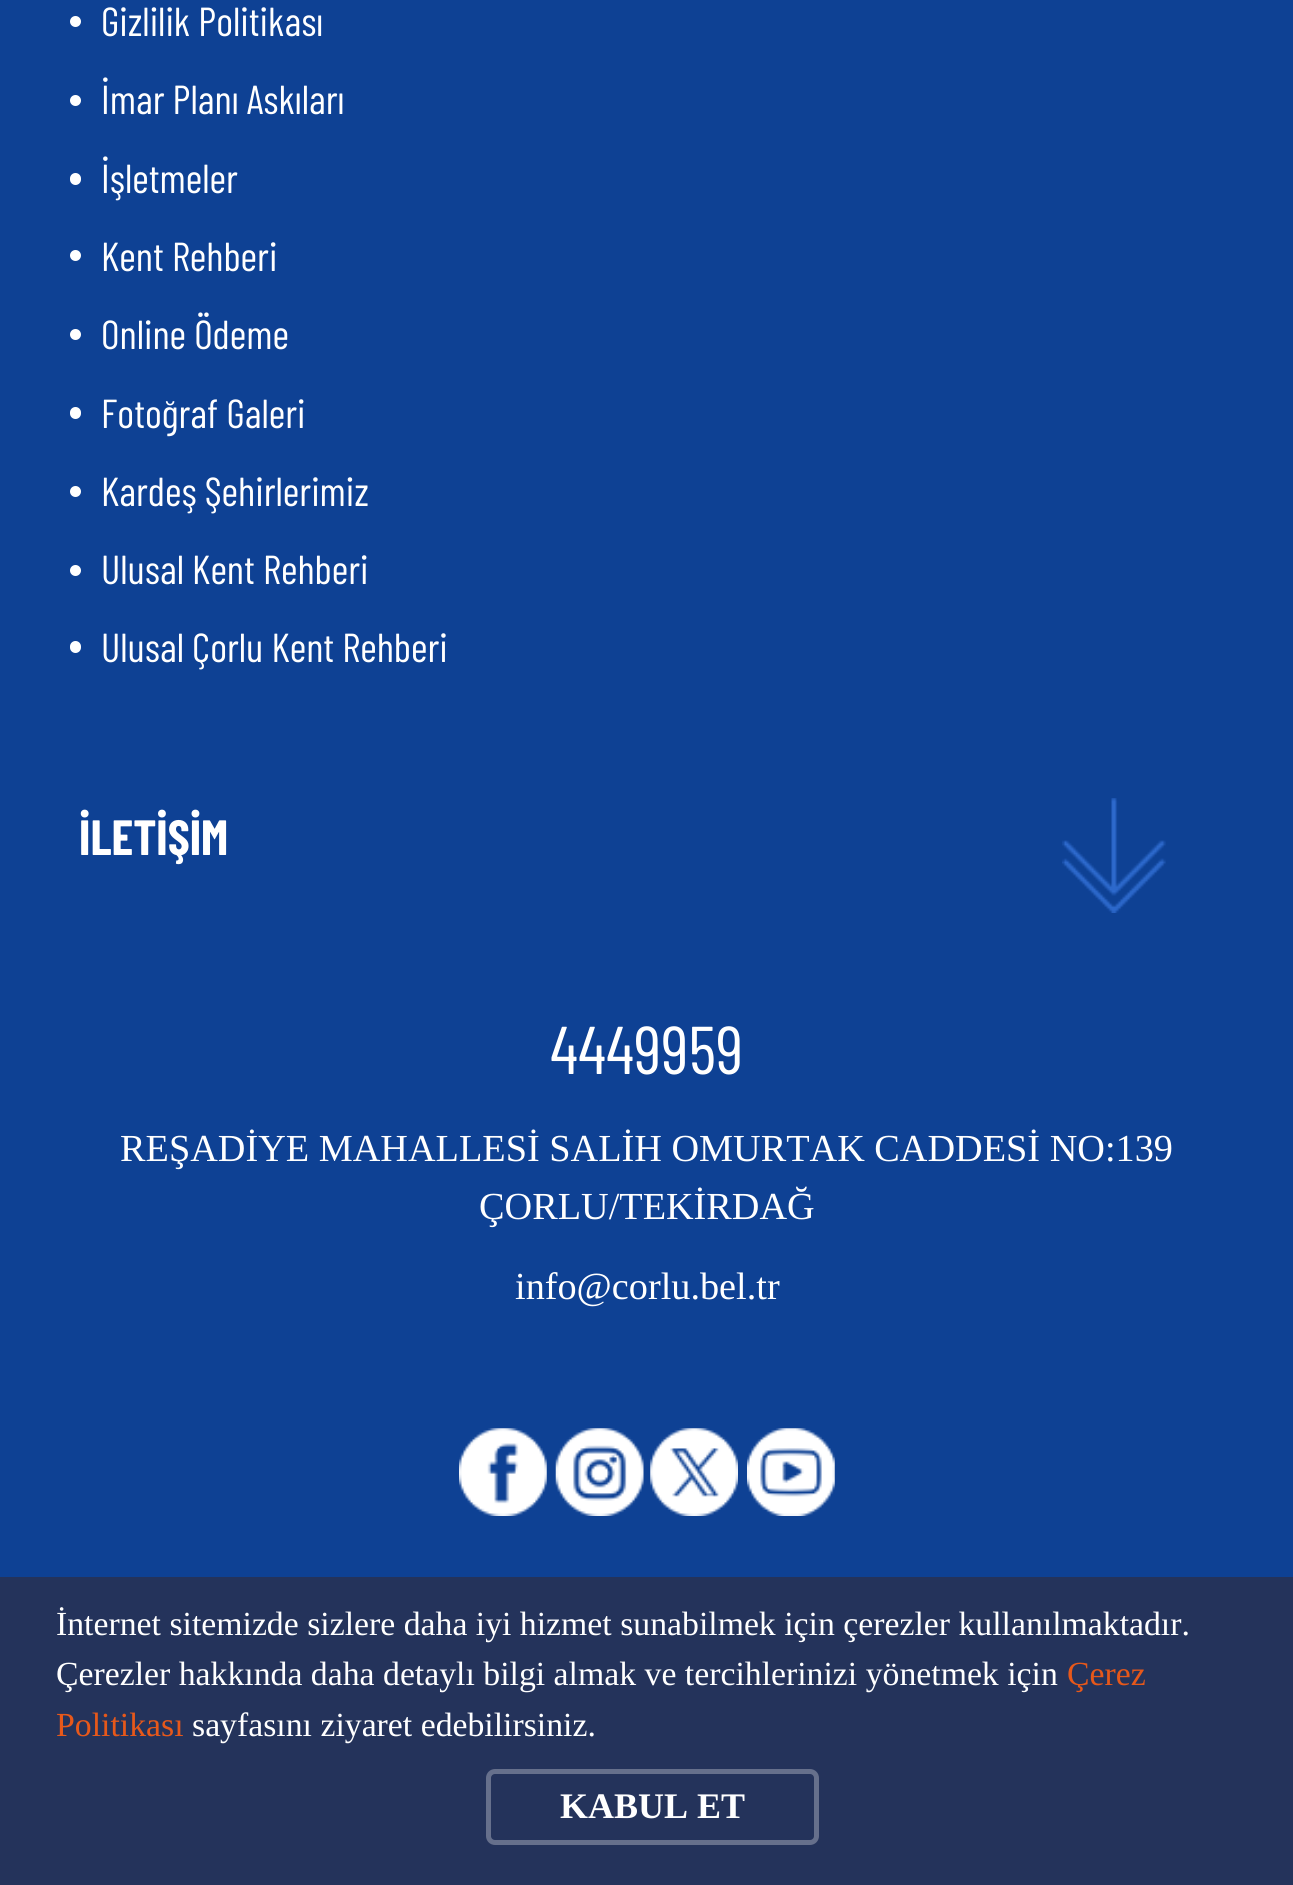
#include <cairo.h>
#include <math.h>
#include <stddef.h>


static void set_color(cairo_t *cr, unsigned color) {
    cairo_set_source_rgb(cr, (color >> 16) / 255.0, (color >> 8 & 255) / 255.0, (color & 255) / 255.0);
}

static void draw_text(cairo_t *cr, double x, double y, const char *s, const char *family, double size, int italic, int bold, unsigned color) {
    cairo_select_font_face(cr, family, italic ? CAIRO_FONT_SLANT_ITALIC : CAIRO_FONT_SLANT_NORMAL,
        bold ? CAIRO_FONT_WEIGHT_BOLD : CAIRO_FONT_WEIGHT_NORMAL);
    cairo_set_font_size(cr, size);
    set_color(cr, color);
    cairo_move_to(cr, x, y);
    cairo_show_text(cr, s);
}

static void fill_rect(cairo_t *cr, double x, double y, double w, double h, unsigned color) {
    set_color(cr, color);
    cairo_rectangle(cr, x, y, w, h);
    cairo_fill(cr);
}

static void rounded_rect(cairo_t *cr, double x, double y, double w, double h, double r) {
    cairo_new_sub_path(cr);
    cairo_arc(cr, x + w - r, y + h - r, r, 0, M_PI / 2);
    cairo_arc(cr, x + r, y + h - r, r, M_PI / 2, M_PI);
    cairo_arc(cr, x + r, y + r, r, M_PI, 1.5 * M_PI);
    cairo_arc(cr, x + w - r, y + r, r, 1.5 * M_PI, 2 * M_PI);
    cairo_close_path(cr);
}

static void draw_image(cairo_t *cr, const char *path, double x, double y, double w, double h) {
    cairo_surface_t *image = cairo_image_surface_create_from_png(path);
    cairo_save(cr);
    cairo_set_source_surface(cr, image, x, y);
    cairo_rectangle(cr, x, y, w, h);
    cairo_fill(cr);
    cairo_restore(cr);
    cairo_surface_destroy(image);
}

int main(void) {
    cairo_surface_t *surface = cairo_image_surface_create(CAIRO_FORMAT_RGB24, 1293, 1885);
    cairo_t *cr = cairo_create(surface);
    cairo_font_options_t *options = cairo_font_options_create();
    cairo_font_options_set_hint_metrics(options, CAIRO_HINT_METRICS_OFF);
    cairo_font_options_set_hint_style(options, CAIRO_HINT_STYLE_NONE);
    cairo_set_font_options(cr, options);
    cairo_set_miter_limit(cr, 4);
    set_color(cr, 0x0E4194);
    cairo_paint(cr);
    set_color(cr, 0xFFFFFF);
    cairo_arc(cr, 75.5, 21.5, 5.5, 0, 2 * M_PI);
    cairo_fill(cr);
    draw_text(cr, 101, 36, "Gizlilik Politikası", "Barlow Condensed", 40.5, 0, 0, 0xFFFFFF);
    cairo_new_path(cr);
    cairo_arc(cr, 75.5, 100.5, 5.5, 0, 2 * M_PI);
    cairo_fill(cr);
    draw_text(cr, 101, 114, "İmar Planı Askıları", "Barlow Condensed", 40.5, 0, 0, 0xFFFFFF);
    rounded_rect(cr, 70, 173, 11, 12, 5.5);
    cairo_fill(cr);
    draw_text(cr, 101, 193, "İşletmeler", "Barlow Condensed", 40.5, 0, 0, 0xFFFFFF);
    cairo_new_path(cr);
    cairo_arc(cr, 75.5, 255.5, 5.5, 0, 2 * M_PI);
    cairo_fill(cr);
    draw_text(cr, 101, 271, "Kent Rehberi", "Barlow Condensed", 40.5, 0, 0, 0xFFFFFF);
    cairo_new_path(cr);
    cairo_arc(cr, 75.5, 334.5, 5.5, 0, 2 * M_PI);
    cairo_fill(cr);
    draw_text(cr, 101, 349, "Online Ödeme", "Barlow Condensed", 40.5, 0, 0, 0xFFFFFF);
    rounded_rect(cr, 70, 407, 11, 12, 5.5);
    cairo_fill(cr);
    draw_text(cr, 101, 428, "Fotoğraf Galeri", "Barlow Condensed", 40.5, 0, 0, 0xFFFFFF);
    cairo_new_path(cr);
    cairo_arc(cr, 75.5, 491.5, 5.5, 0, 2 * M_PI);
    cairo_fill(cr);
    draw_text(cr, 101, 506, "Kardeş Şehirlerimiz", "Barlow Condensed", 40.5, 0, 0, 0xFFFFFF);
    cairo_new_path(cr);
    cairo_arc(cr, 75.5, 570.5, 5.5, 0, 2 * M_PI);
    cairo_fill(cr);
    draw_text(cr, 101, 584, "Ulusal Kent Rehberi", "Barlow Condensed", 40.5, 0, 0, 0xFFFFFF);
    rounded_rect(cr, 70, 641, 11, 12, 5.5);
    cairo_fill(cr);
    draw_text(cr, 101, 662, "Ulusal Çorlu Kent Rehberi", "Barlow Condensed", 40.5, 0, 0, 0xFFFFFF);
    draw_image(cr, "assets/img1.png", 1062, 798, 104, 115);
    draw_text(cr, 79, 855, "İLETİŞİM", "Barlow Condensed", 49.5, 0, 1, 0xFFFFFF);
    draw_text(cr, 550, 1074, "4449959", "Barlow Condensed", 67.5, 0, 0, 0xFFFFFF);
    draw_text(cr, 120, 1161, "REŞADİYE MAHALLESİ SALİH OMURTAK CADDESİ NO:139", "Liberation Serif", 38.25, 0, 0, 0xFFFFFF);
    draw_text(cr, 479, 1219, "ÇORLU/TEKİRDAĞ", "Liberation Serif", 38.25, 0, 0, 0xFFFFFF);
    draw_text(cr, 515, 1299, "info@corlu.bel.tr", "Liberation Serif", 38.25, 0, 0, 0xFFFFFF);
    draw_image(cr, "assets/img2.png", 459, 1428, 88, 88);
    draw_image(cr, "assets/img3.png", 555, 1428, 89, 88);
    draw_image(cr, "assets/img4.png", 650, 1428, 88, 88);
    draw_image(cr, "assets/img5.png", 747, 1428, 88, 88);
    fill_rect(cr, 0, 1577, 1293, 308, 0x24335B);
    draw_text(cr, 56, 1635, "İnternet sitemizde sizlere daha iyi hizmet sunabilmek için çerezler kullanılmaktadır.", "Liberation Serif", 33.75, 0, 0, 0xFFFFFF);
    draw_text(cr, 56, 1685, "Çerezler hakkında daha detaylı bilgi almak ve tercihlerinizi yönetmek için", "Liberation Serif", 33.75, 0, 0, 0xFFFFFF);
    draw_text(cr, 1067, 1685, "Çerez", "Liberation Serif", 33.75, 0, 0, 0xE7581A);
    draw_text(cr, 56, 1736, "Politikası", "Liberation Serif", 33.75, 0, 0, 0xE7581A);
    draw_text(cr, 192, 1736, "sayfasını ziyaret edebilirsiniz.", "Liberation Serif", 33.75, 0, 0, 0xFFFFFF);
    rounded_rect(cr, 488.5, 1771.5, 328, 71, 6.5);
    set_color(cr, 0x66708C);
    cairo_set_line_width(cr, 5);
    cairo_stroke(cr);
    draw_text(cr, 560, 1818, "KABUL ET", "Liberation Serif", 36, 0, 1, 0xFFFFFF);
    cairo_surface_write_to_png(surface, "output.png");
    cairo_font_options_destroy(options);
    cairo_destroy(cr);
    cairo_surface_destroy(surface);
    return 0;
}
